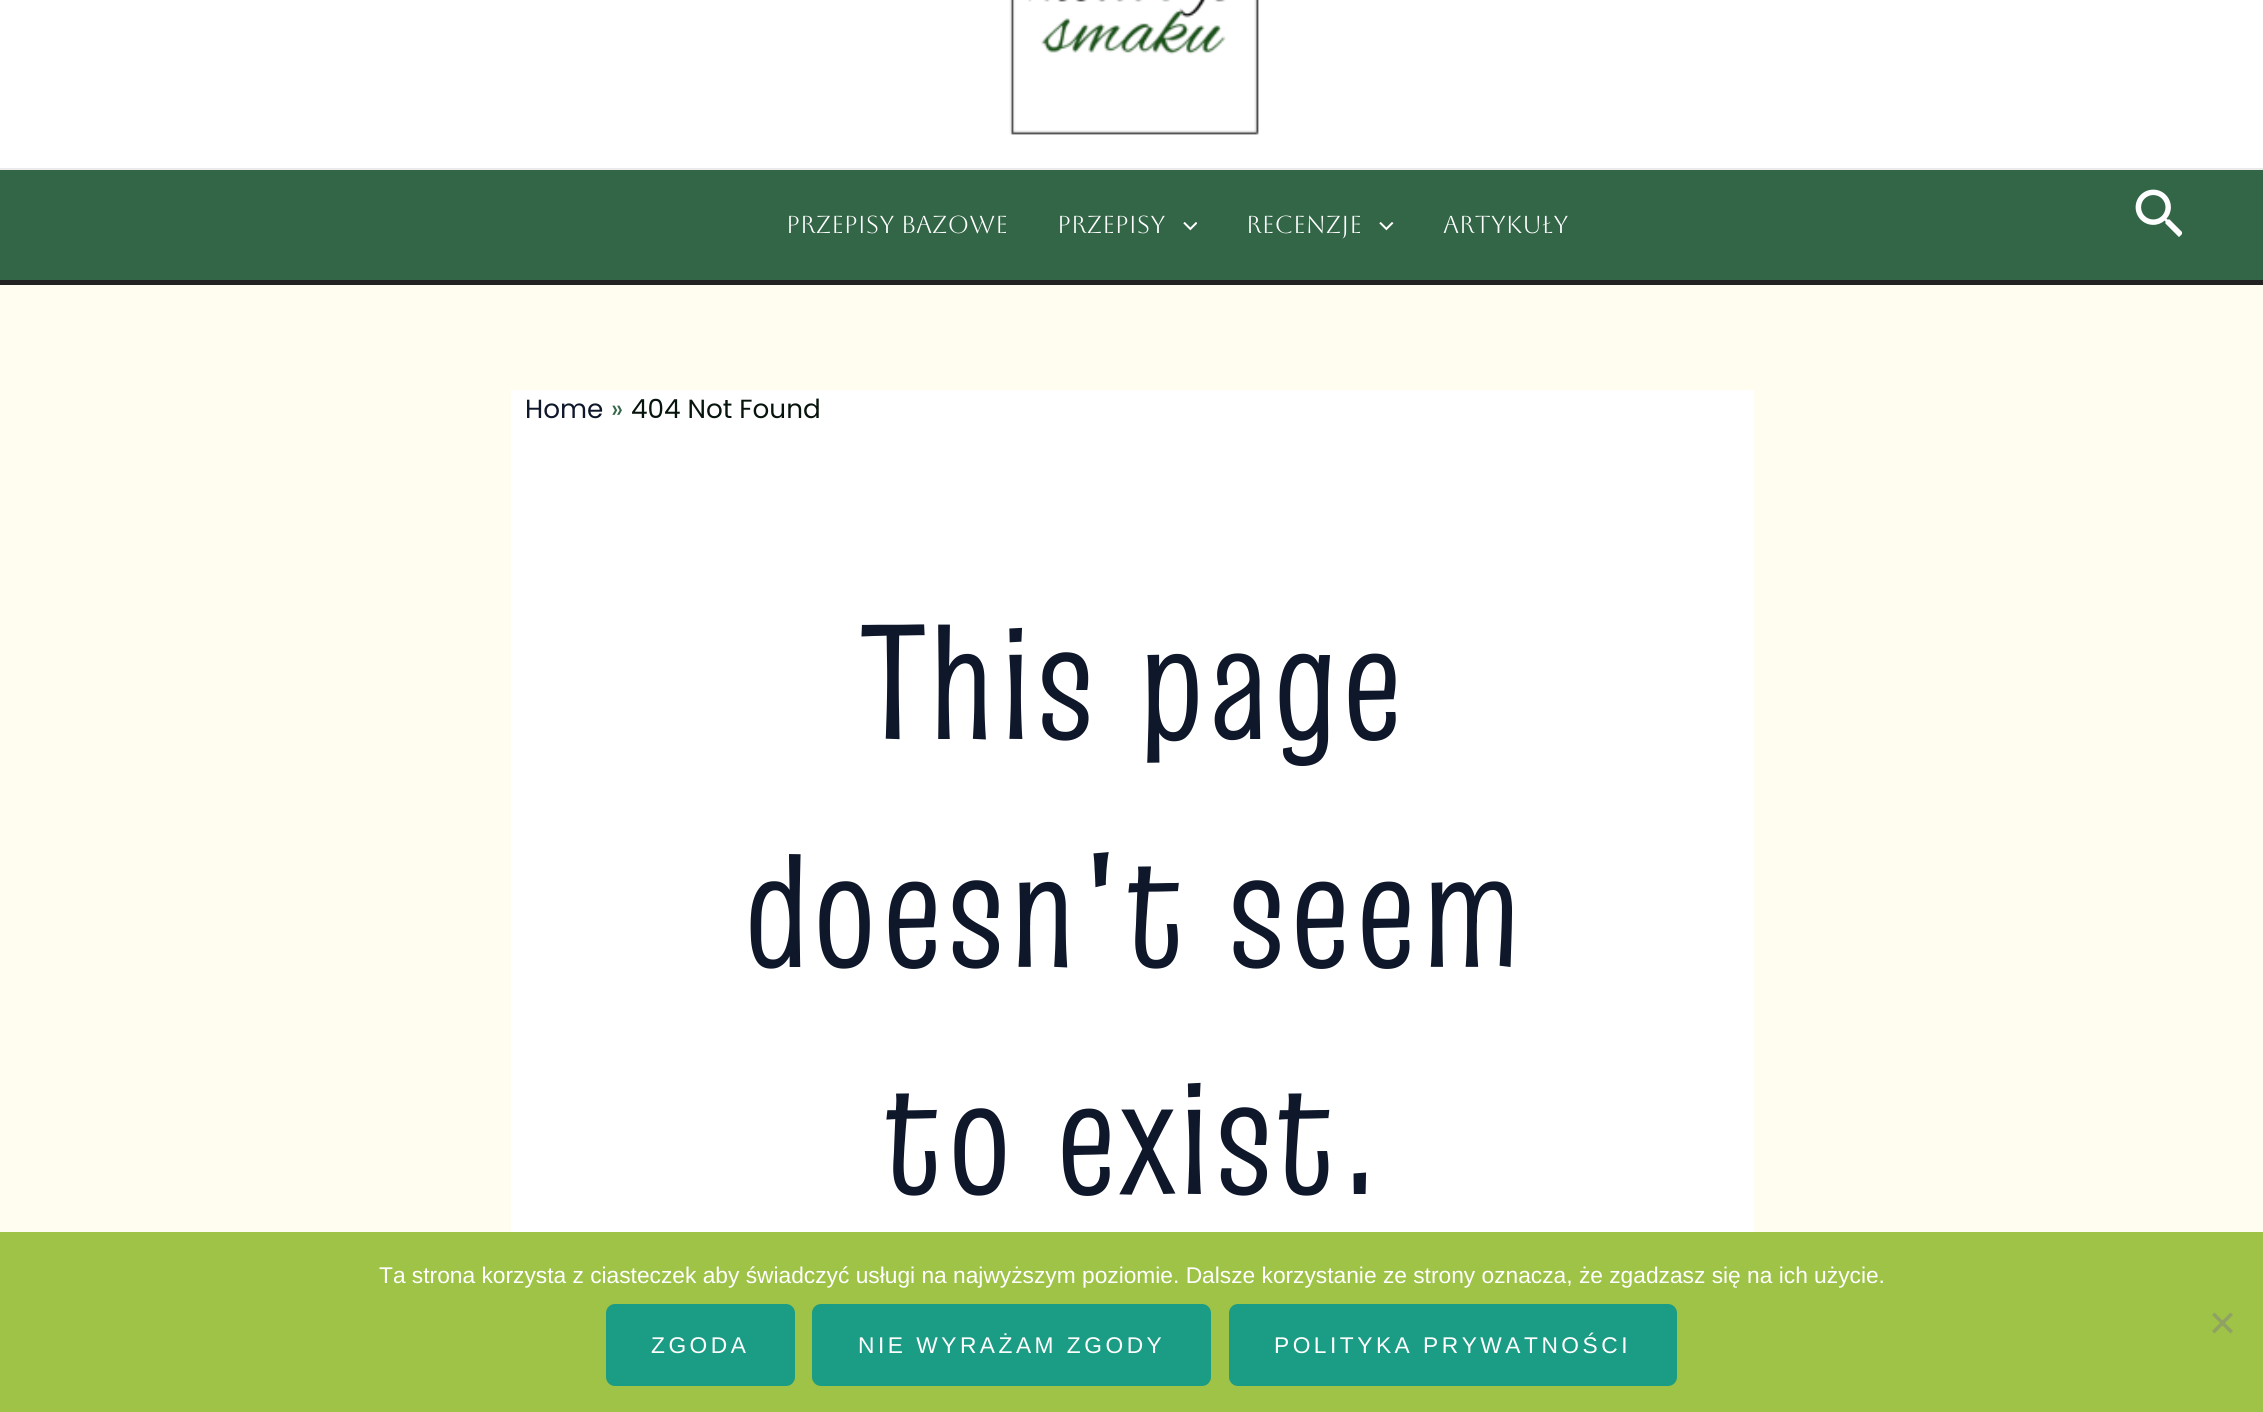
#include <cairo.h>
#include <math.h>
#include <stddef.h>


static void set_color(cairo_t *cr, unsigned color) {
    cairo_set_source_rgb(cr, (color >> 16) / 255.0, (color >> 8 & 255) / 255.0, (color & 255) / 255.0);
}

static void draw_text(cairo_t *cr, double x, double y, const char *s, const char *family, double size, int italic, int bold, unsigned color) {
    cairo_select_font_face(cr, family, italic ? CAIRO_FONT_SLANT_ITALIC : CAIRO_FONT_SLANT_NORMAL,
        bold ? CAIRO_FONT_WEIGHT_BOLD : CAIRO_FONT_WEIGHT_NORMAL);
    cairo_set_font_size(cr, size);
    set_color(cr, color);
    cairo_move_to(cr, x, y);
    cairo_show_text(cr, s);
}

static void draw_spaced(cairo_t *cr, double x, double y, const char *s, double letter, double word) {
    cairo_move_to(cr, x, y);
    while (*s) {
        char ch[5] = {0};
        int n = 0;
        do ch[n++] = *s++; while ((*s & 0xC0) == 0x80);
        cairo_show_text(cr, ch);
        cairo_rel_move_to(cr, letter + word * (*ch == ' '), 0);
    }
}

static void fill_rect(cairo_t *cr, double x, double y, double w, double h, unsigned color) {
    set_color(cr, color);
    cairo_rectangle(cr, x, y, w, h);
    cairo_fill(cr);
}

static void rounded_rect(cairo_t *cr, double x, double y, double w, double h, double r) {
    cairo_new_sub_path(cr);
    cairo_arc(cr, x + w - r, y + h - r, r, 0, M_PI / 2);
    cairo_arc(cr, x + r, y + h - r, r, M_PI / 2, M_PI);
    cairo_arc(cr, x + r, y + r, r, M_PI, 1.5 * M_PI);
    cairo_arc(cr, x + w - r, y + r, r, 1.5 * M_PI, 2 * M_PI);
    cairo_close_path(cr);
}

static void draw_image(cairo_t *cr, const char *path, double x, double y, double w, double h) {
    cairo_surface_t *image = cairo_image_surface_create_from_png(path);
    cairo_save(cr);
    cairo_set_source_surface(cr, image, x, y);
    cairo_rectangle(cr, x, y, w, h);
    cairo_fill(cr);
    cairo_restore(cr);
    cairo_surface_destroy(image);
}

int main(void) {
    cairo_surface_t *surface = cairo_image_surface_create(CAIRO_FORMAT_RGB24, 2263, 1412);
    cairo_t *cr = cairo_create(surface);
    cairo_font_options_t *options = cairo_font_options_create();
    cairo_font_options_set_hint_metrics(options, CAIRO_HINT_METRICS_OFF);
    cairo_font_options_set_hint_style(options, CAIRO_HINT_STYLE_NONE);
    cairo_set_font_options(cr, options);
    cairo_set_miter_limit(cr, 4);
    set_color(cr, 0xFFFDEF);
    cairo_paint(cr);
    fill_rect(cr, 0, 0, 2263, 168, 0xFFFFFF);
    fill_rect(cr, 0, 168, 2263, 2, 0xEAEAEA);
    draw_image(cr, "assets/img1.png", 1009, 0, 250, 135);
    fill_rect(cr, 0, 170, 2263, 110, 0x326647);
    fill_rect(cr, 0, 280, 2263, 5, 0x222222);
    draw_text(cr, 786, 233, "Przepisy bazowe", "Aboreto", 24.5, 0, 0, 0xFFFFFF);
    draw_text(cr, 1057, 233, "Przepisy", "Aboreto", 24.5, 0, 0, 0xFFFFFF);
    draw_image(cr, "assets/img2.png", 1183, 222, 14, 9);
    draw_text(cr, 1246, 233, "Recenzje", "Aboreto", 24.5, 0, 0, 0xFFFFFF);
    draw_image(cr, "assets/img3.png", 1379, 222, 15, 9);
    draw_text(cr, 1443, 233, "Artykuły", "Aboreto", 24.5, 0, 0, 0xFFFFFF);
    draw_image(cr, "assets/img4.png", 2135, 189, 47, 48);
    fill_rect(cr, 511, 390, 1243, 842, 0xFFFFFF);
    draw_text(cr, 525, 418, "Home", "Poppins", 26.25, 0, 0, 0x0F172A);
    draw_text(cr, 611, 418, "»", "Poppins", 26.25, 0, 0, 0x326647);
    draw_text(cr, 631, 418, "404 Not Found", "Poppins", 26.25, 0, 0, 0x06140C);
    draw_text(cr, 860, 739, "This page", "Truculenta", 162.75, 0, 0, 0x0F172A);
    draw_text(cr, 741, 967, "doesn't seem", "Truculenta", 162.75, 0, 0, 0x0F172A);
    draw_text(cr, 882, 1194, "to exist.", "Truculenta", 162.75, 0, 0, 0x0F172A);
    fill_rect(cr, 0, 1232, 2263, 180, 0x9EC347);
    draw_text(cr, 379, 1283, "Ta strona korzysta z ciasteczek aby świadczyć usługi na najwyższym poziomie. Dalsze korzystanie ze strony oznacza, że zgadzasz się na ich użycie.", "Liberation Sans", 22.75, 0, 0, 0xFFFFFF);
    set_color(cr, 0x8FA264);
    cairo_new_path(cr);
    cairo_move_to(cr, 2230.5, 1312.5);
    cairo_line_to(cr, 2233, 1315);
    cairo_line_to(cr, 2214.5, 1333.5);
    cairo_line_to(cr, 2212, 1331);
    cairo_close_path(cr);
    cairo_fill(cr);
    cairo_new_path(cr);
    cairo_move_to(cr, 2212, 1315);
    cairo_line_to(cr, 2214.5, 1312.5);
    cairo_line_to(cr, 2233, 1331);
    cairo_line_to(cr, 2230.5, 1333.5);
    cairo_close_path(cr);
    cairo_fill(cr);
    set_color(cr, 0x1B9C85);
    rounded_rect(cr, 606, 1304, 189, 82, 9);
    cairo_fill(cr);
    set_color(cr, 0xFFFFFF);
    draw_spaced(cr, 651, 1353, "ZGODA", 3.5, 0);
    set_color(cr, 0x1B9C85);
    rounded_rect(cr, 812, 1304, 399, 82, 9);
    cairo_fill(cr);
    set_color(cr, 0xFFFFFF);
    draw_spaced(cr, 858, 1353, "NIE WYRAŻAM ZGODY", 3.5, 0);
    set_color(cr, 0x1B9C85);
    rounded_rect(cr, 1229, 1304, 448, 82, 9);
    cairo_fill(cr);
    set_color(cr, 0xFFFFFF);
    draw_spaced(cr, 1274, 1353, "POLITYKA PRYWATNOŚCI", 3.5, 0);
    cairo_surface_write_to_png(surface, "output.png");
    cairo_font_options_destroy(options);
    cairo_destroy(cr);
    cairo_surface_destroy(surface);
    return 0;
}
